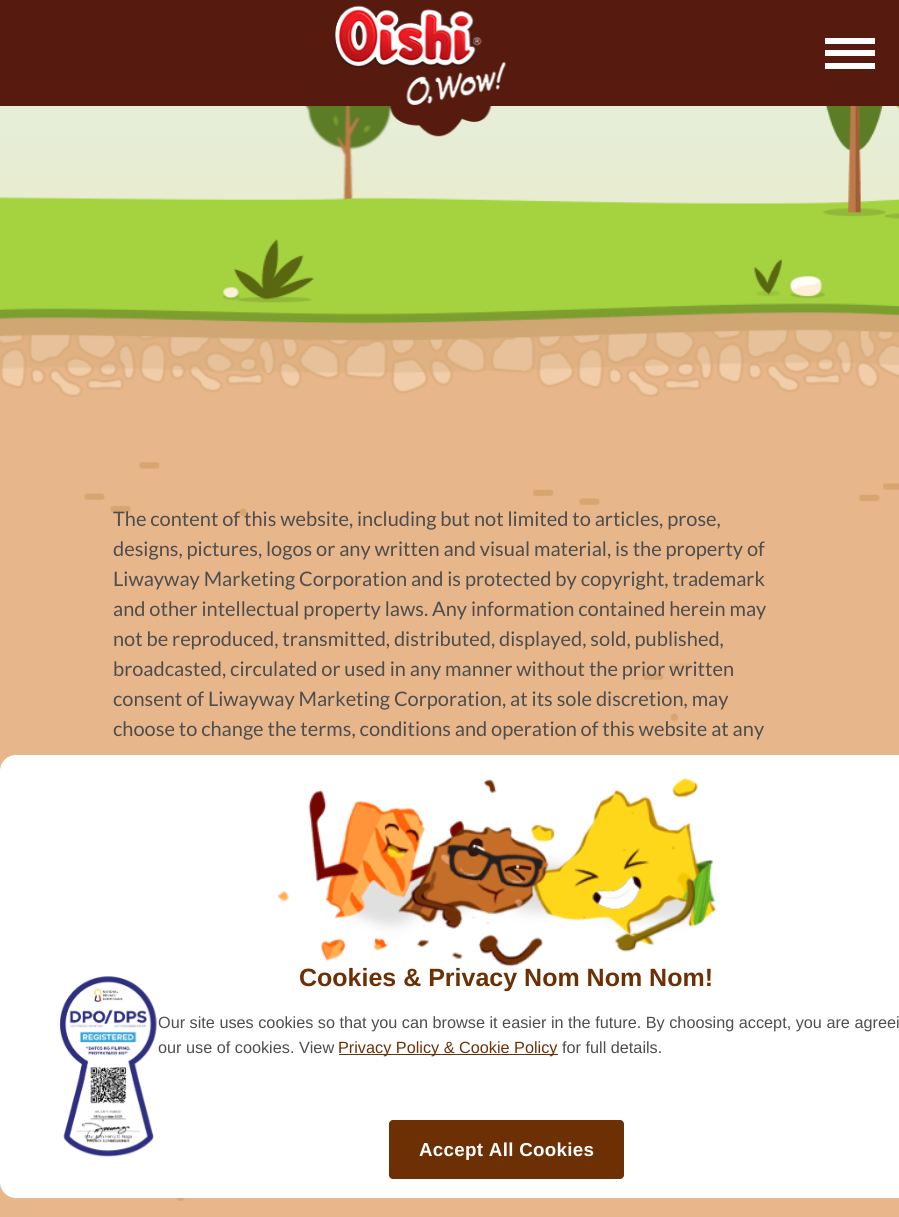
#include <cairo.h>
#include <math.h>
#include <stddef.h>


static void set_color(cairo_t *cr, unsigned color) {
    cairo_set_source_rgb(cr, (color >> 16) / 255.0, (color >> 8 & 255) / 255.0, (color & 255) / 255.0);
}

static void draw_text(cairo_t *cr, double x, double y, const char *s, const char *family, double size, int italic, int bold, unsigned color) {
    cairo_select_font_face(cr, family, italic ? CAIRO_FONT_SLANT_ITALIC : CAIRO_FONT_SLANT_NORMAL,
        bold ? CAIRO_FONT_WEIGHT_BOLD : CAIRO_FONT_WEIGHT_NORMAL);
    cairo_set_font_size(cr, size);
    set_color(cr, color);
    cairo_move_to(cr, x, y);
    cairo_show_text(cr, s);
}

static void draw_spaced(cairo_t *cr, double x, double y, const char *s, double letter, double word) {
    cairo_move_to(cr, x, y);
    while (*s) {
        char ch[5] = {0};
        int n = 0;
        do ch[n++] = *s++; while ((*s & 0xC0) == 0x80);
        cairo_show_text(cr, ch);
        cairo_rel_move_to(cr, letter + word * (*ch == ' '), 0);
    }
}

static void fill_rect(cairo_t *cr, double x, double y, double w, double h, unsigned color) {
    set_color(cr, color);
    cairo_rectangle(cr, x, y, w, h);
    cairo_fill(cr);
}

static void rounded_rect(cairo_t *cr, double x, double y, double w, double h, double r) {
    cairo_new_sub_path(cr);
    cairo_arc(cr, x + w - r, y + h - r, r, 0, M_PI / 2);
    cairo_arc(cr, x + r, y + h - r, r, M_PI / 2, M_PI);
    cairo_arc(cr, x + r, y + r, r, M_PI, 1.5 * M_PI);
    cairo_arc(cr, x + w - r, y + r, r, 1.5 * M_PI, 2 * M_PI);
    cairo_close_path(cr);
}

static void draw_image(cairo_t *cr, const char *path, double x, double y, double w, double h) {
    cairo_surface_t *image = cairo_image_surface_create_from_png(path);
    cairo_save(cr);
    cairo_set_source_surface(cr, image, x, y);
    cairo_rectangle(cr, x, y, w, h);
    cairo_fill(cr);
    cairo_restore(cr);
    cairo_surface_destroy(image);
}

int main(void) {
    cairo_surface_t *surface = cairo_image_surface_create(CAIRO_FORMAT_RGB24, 899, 1217);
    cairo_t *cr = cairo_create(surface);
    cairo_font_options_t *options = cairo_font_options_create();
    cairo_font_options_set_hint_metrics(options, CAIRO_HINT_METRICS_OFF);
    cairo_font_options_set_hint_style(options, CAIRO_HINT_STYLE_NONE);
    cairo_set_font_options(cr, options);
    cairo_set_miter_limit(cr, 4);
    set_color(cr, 0xE7B68A);
    cairo_paint(cr);
    draw_image(cr, "assets/img1.png", 84, 462, 815, 739);
    fill_rect(cr, 0, 0, 899, 106, 0x561B0E);
    draw_image(cr, "assets/img3.png", 0, 106, 899, 291);
    draw_image(cr, "assets/img2.png", 334, 5, 172, 132);
    fill_rect(cr, 825, 50, 50, 6, 0xFFFFFF);
    fill_rect(cr, 825, 38, 50, 6, 0xFFFFFF);
    fill_rect(cr, 825, 63, 50, 6, 0xFFFFFF);
    draw_text(cr, 113, 526, "The content of this website, including but not limited to articles, prose,", "Lato", 20, 0, 0, 0x4D4D4D);
    draw_text(cr, 113, 556, "designs, pictures, logos or any written and visual material, is the property of", "Lato", 20, 0, 0, 0x4D4D4D);
    draw_text(cr, 113, 586, "Liwayway Marketing Corporation and is protected by copyright, trademark", "Lato", 20, 0, 0, 0x4D4D4D);
    draw_text(cr, 113, 616, "and other intellectual property laws. Any information contained herein may", "Lato", 20, 0, 0, 0x4D4D4D);
    draw_text(cr, 113, 646, "not be reproduced, transmitted, distributed, displayed, sold, published,", "Lato", 20, 0, 0, 0x4D4D4D);
    draw_text(cr, 113, 676, "broadcasted, circulated or used in any manner without the prior written", "Lato", 20, 0, 0, 0x4D4D4D);
    draw_text(cr, 113, 706, "consent of Liwayway Marketing Corporation, at its sole discretion, may", "Lato", 20, 0, 0, 0x4D4D4D);
    draw_text(cr, 113, 736, "choose to change the terms, conditions and operation of this website at any", "Lato", 20, 0, 0, 0x4D4D4D);
    set_color(cr, 0xFFFFFF);
    rounded_rect(cr, 0, 755, 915, 443, 16);
    cairo_fill(cr);
    draw_image(cr, "assets/img4.png", 277, 777, 440, 190);
    draw_image(cr, "assets/img5.png", 60, 976, 97, 181);
    draw_text(cr, 299, 986, "Cookies & Privacy Nom Nom Nom!", "Liberation Sans", 25, 0, 1, 0x6D3005);
    draw_text(cr, 158, 1028, "Our site uses cookies so that you can browse it easier in the future. By choosing accept, you are agreei", "Liberation Sans", 16.25, 0, 0, 0x4D4D4D);
    draw_text(cr, 158, 1053, "our use of cookies. View", "Liberation Sans", 16.25, 0, 0, 0x4D4D4D);
    fill_rect(cr, 339, 1054, 219, 1, 0x6D3005);
    draw_text(cr, 338, 1053, "Privacy Policy & Cookie Policy", "Liberation Sans", 16.25, 0, 0, 0x6D3005);
    draw_text(cr, 562, 1053, "for full details.", "Liberation Sans", 16.25, 0, 0, 0x4D4D4D);
    set_color(cr, 0x6D3005);
    rounded_rect(cr, 389, 1120, 235, 59, 4);
    cairo_fill(cr);
    cairo_select_font_face(cr, "Liberation Sans", CAIRO_FONT_SLANT_NORMAL, CAIRO_FONT_WEIGHT_BOLD);
    cairo_set_font_size(cr, 18.75);
    set_color(cr, 0xFFFFFF);
    draw_spaced(cr, 419, 1156, "Accept All Cookies", 0.3, 0);
    cairo_surface_write_to_png(surface, "output.png");
    cairo_font_options_destroy(options);
    cairo_destroy(cr);
    cairo_surface_destroy(surface);
    return 0;
}
